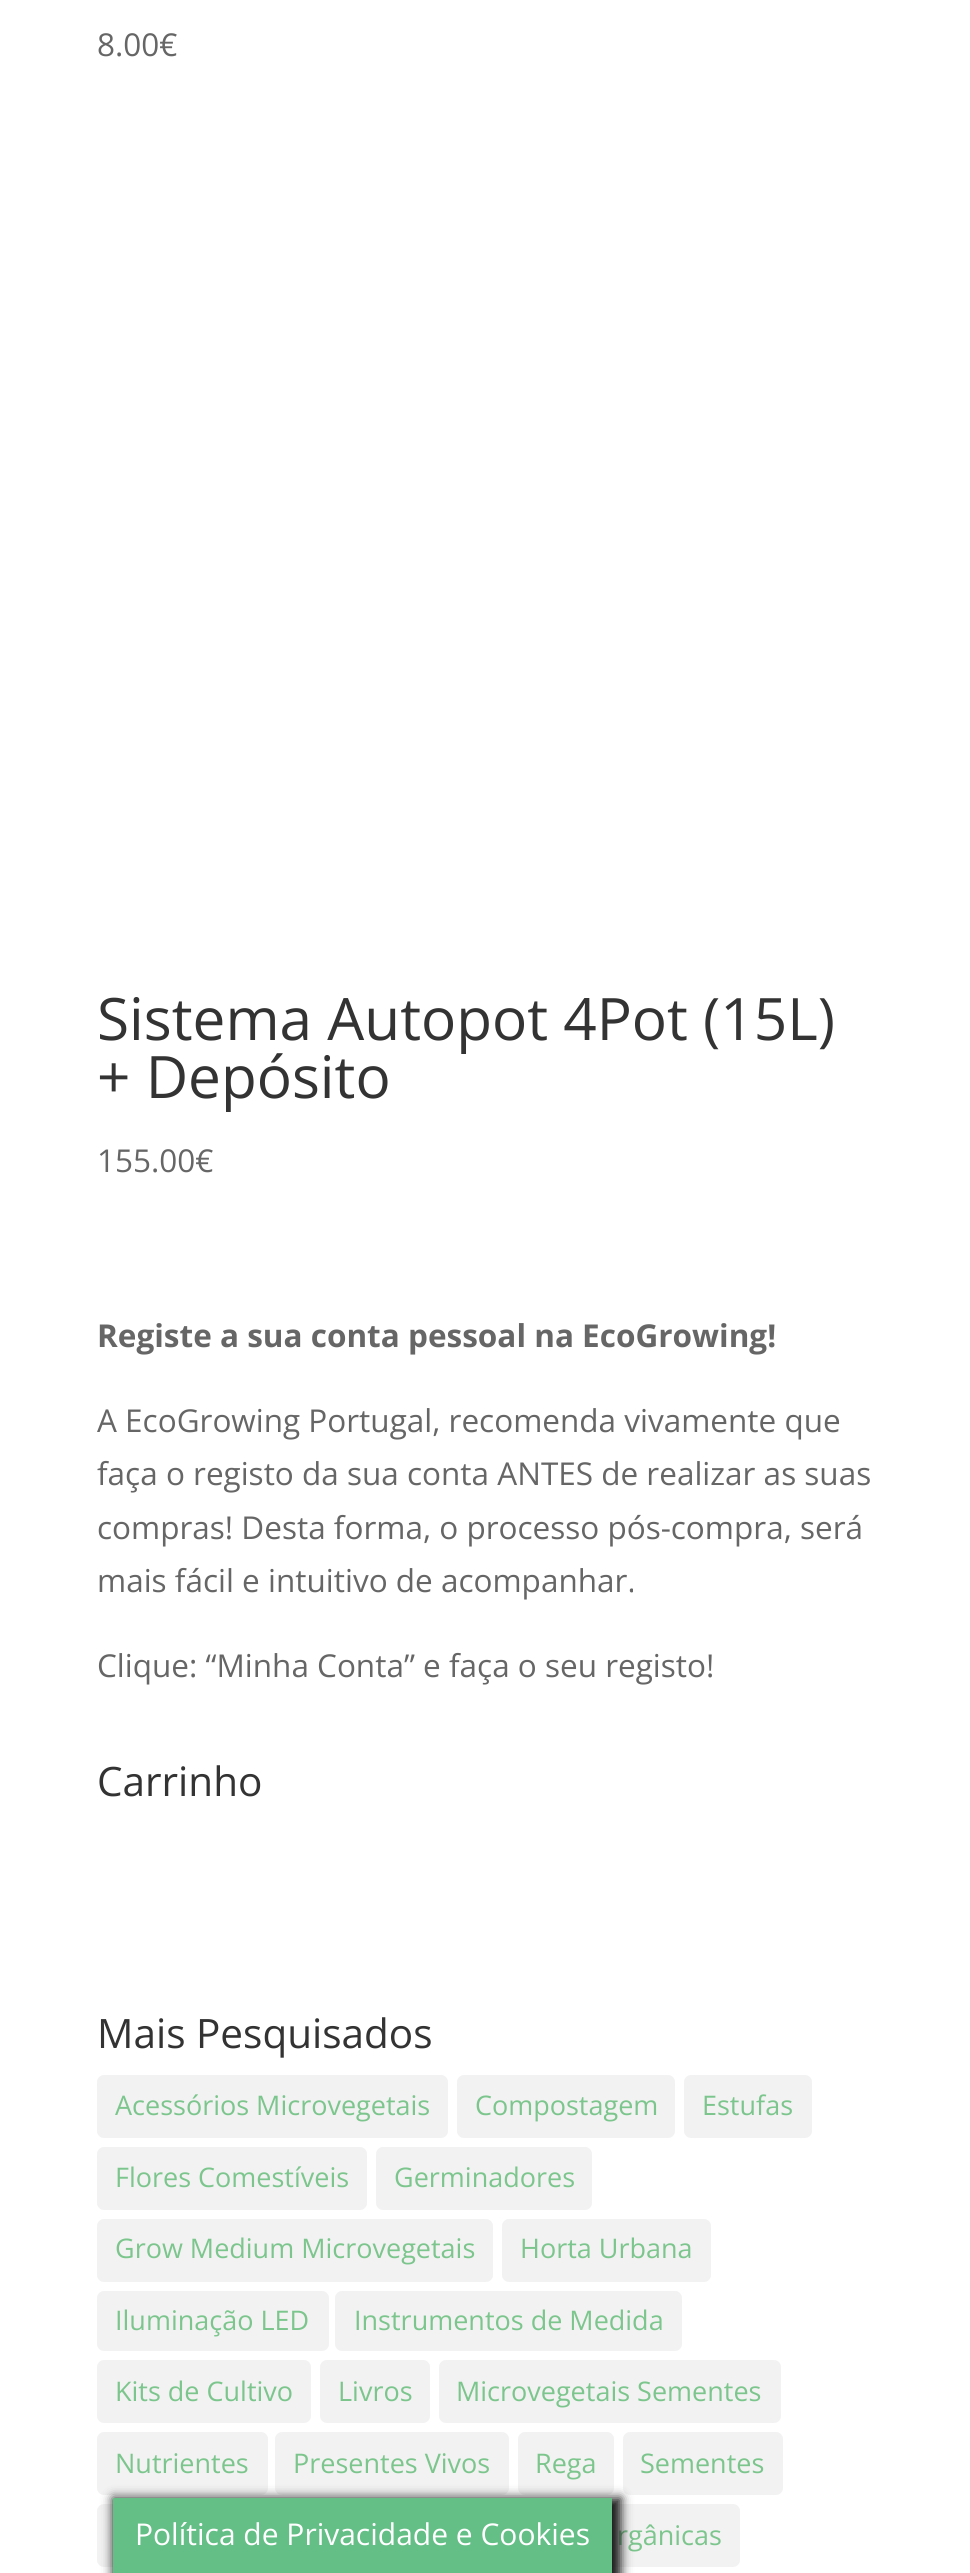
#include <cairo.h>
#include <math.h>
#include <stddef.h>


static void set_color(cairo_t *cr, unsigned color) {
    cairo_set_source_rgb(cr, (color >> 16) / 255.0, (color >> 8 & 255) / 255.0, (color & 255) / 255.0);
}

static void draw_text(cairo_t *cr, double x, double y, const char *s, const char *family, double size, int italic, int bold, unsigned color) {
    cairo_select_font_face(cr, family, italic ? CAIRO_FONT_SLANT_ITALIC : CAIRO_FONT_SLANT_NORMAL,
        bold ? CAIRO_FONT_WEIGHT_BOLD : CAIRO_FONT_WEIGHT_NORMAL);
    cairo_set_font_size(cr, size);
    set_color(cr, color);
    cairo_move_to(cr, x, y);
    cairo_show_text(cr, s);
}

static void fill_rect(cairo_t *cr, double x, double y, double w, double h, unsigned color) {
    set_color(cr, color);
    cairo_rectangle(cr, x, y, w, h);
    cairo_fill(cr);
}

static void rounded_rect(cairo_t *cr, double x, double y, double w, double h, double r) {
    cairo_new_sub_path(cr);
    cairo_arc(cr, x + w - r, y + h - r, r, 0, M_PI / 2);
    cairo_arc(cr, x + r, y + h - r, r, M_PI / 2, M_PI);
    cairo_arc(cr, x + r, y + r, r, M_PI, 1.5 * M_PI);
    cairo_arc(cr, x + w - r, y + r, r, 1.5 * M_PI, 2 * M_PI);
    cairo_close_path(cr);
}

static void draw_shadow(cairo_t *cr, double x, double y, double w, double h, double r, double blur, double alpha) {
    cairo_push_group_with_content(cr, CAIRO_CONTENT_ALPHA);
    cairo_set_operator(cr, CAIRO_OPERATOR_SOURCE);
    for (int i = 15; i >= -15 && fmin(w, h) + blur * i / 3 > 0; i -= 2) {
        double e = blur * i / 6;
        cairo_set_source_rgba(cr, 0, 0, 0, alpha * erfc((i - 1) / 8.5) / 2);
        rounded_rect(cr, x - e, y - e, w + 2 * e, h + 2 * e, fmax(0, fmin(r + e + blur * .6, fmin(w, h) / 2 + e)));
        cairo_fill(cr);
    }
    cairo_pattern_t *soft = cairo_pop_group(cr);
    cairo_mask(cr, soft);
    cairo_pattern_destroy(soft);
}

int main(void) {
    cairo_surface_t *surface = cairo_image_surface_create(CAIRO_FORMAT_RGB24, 970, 2573);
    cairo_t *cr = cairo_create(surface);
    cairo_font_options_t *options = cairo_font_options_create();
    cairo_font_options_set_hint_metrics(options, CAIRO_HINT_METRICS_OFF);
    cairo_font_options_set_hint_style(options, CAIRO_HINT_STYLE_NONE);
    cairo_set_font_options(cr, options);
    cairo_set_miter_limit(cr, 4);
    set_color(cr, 0xFFFFFF);
    cairo_paint(cr);
    draw_text(cr, 97, 56, "8.00€", "Open Sans", 31.5, 0, 0, 0x666666);
    draw_text(cr, 97, 1040, "Sistema Autopot 4Pot (15L)", "Open Sans", 58.5, 0, 0, 0x333333);
    draw_text(cr, 97, 1098, "+ Depósito", "Open Sans", 58.5, 0, 0, 0x333333);
    draw_text(cr, 97, 1172, "155.00€", "Open Sans", 31.5, 0, 0, 0x666666);
    draw_text(cr, 97, 1347, "Registe a sua conta pessoal na EcoGrowing!", "Open Sans", 31.5, 0, 1, 0x666666);
    draw_text(cr, 97, 1432, "A EcoGrowing Portugal, recomenda vivamente que", "Open Sans", 31.5, 0, 0, 0x666666);
    draw_text(cr, 97, 1485, "faça o registo da sua conta ANTES de realizar as suas", "Open Sans", 31.5, 0, 0, 0x666666);
    draw_text(cr, 97, 1539, "compras! Desta forma, o processo pós-compra, será", "Open Sans", 31.5, 0, 0, 0x666666);
    draw_text(cr, 97, 1592, "mais fácil e intuitivo de acompanhar.", "Open Sans", 31.5, 0, 0, 0x666666);
    draw_text(cr, 97, 1677, "Clique: “Minha Conta” e faça o seu registo!", "Open Sans", 31.5, 0, 0, 0x666666);
    draw_text(cr, 97, 1796, "Carrinho", "Open Sans", 40.5, 0, 0, 0x333333);
    draw_text(cr, 97, 2048, "Mais Pesquisados", "Open Sans", 40.5, 0, 0, 0x333333);
    set_color(cr, 0xF2F2F2);
    rounded_rect(cr, 97, 2075, 351, 63, 7);
    cairo_fill(cr);
    draw_text(cr, 115, 2115, "Acessórios Microvegetais", "Open Sans", 27, 0, 0, 0x7CC68D);
    set_color(cr, 0xF2F2F2);
    rounded_rect(cr, 457, 2075, 218, 63, 7);
    cairo_fill(cr);
    draw_text(cr, 475, 2115, "Compostagem", "Open Sans", 27, 0, 0, 0x7CC68D);
    set_color(cr, 0xF2F2F2);
    rounded_rect(cr, 684, 2075, 128, 63, 7);
    cairo_fill(cr);
    draw_text(cr, 702, 2115, "Estufas", "Open Sans", 27, 0, 0, 0x7CC68D);
    set_color(cr, 0xF2F2F2);
    rounded_rect(cr, 97, 2147, 270, 63, 7);
    cairo_fill(cr);
    draw_text(cr, 115, 2187, "Flores Comestíveis", "Open Sans", 27, 0, 0, 0x7CC68D);
    set_color(cr, 0xF2F2F2);
    rounded_rect(cr, 376, 2147, 216, 63, 7);
    cairo_fill(cr);
    draw_text(cr, 394, 2187, "Germinadores", "Open Sans", 27, 0, 0, 0x7CC68D);
    set_color(cr, 0xF2F2F2);
    rounded_rect(cr, 97, 2219, 396, 63, 7);
    cairo_fill(cr);
    draw_text(cr, 115, 2258, "Grow Medium Microvegetais", "Open Sans", 27, 0, 0, 0x7CC68D);
    set_color(cr, 0xF2F2F2);
    rounded_rect(cr, 502, 2219, 209, 63, 7);
    cairo_fill(cr);
    draw_text(cr, 520, 2258, "Horta Urbana", "Open Sans", 27, 0, 0, 0x7CC68D);
    set_color(cr, 0xF2F2F2);
    rounded_rect(cr, 97, 2291, 232, 60, 7);
    cairo_fill(cr);
    draw_text(cr, 115, 2330, "Iluminação LED", "Open Sans", 27, 0, 0, 0x7CC68D);
    set_color(cr, 0xF2F2F2);
    rounded_rect(cr, 335, 2291, 347, 60, 7);
    cairo_fill(cr);
    draw_text(cr, 354, 2330, "Instrumentos de Medida", "Open Sans", 27, 0, 0, 0x7CC68D);
    set_color(cr, 0xF2F2F2);
    rounded_rect(cr, 97, 2360, 214, 63, 7);
    cairo_fill(cr);
    draw_text(cr, 115, 2401, "Kits de Cultivo", "Open Sans", 27, 0, 0, 0x7CC68D);
    set_color(cr, 0xF2F2F2);
    rounded_rect(cr, 320, 2360, 110, 63, 7);
    cairo_fill(cr);
    draw_text(cr, 338, 2401, "Livros", "Open Sans", 27, 0, 0, 0x7CC68D);
    set_color(cr, 0xF2F2F2);
    rounded_rect(cr, 439, 2360, 342, 63, 7);
    cairo_fill(cr);
    draw_text(cr, 456, 2401, "Microvegetais Sementes", "Open Sans", 27, 0, 0, 0x7CC68D);
    set_color(cr, 0xF2F2F2);
    rounded_rect(cr, 97, 2432, 171, 63, 7);
    cairo_fill(cr);
    draw_text(cr, 115, 2473, "Nutrientes", "Open Sans", 27, 0, 0, 0x7CC68D);
    set_color(cr, 0xF2F2F2);
    rounded_rect(cr, 275, 2432, 234, 63, 7);
    cairo_fill(cr);
    draw_text(cr, 293, 2473, "Presentes Vivos", "Open Sans", 27, 0, 0, 0x7CC68D);
    set_color(cr, 0xF2F2F2);
    rounded_rect(cr, 518, 2432, 96, 63, 7);
    cairo_fill(cr);
    draw_text(cr, 535, 2473, "Rega", "Open Sans", 27, 0, 0, 0x7CC68D);
    set_color(cr, 0xF2F2F2);
    rounded_rect(cr, 623, 2432, 160, 63, 7);
    cairo_fill(cr);
    draw_text(cr, 640, 2473, "Sementes", "Open Sans", 27, 0, 0, 0x7CC68D);
    set_color(cr, 0xF2F2F2);
    rounded_rect(cr, 97, 2504, 342, 63, 7);
    cairo_fill(cr);
    rounded_rect(cr, 448, 2504, 292, 63, 7);
    cairo_fill(cr);
    draw_text(cr, 617, 2545, "rgânicas", "Open Sans", 27, 0, 0, 0x7CC68D);
    set_color(cr, 0x161616);
    draw_shadow(cr, 113, 2498, 508, 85, 0, 5.5, 1);
    fill_rect(cr, 113, 2498, 499, 75, 0x63BF85);
    draw_text(cr, 135, 2545, "Política de Privacidade e Cookies", "Open Sans", 30, 0, 0, 0xFFFFFF);
    cairo_surface_write_to_png(surface, "output.png");
    cairo_font_options_destroy(options);
    cairo_destroy(cr);
    cairo_surface_destroy(surface);
    return 0;
}
